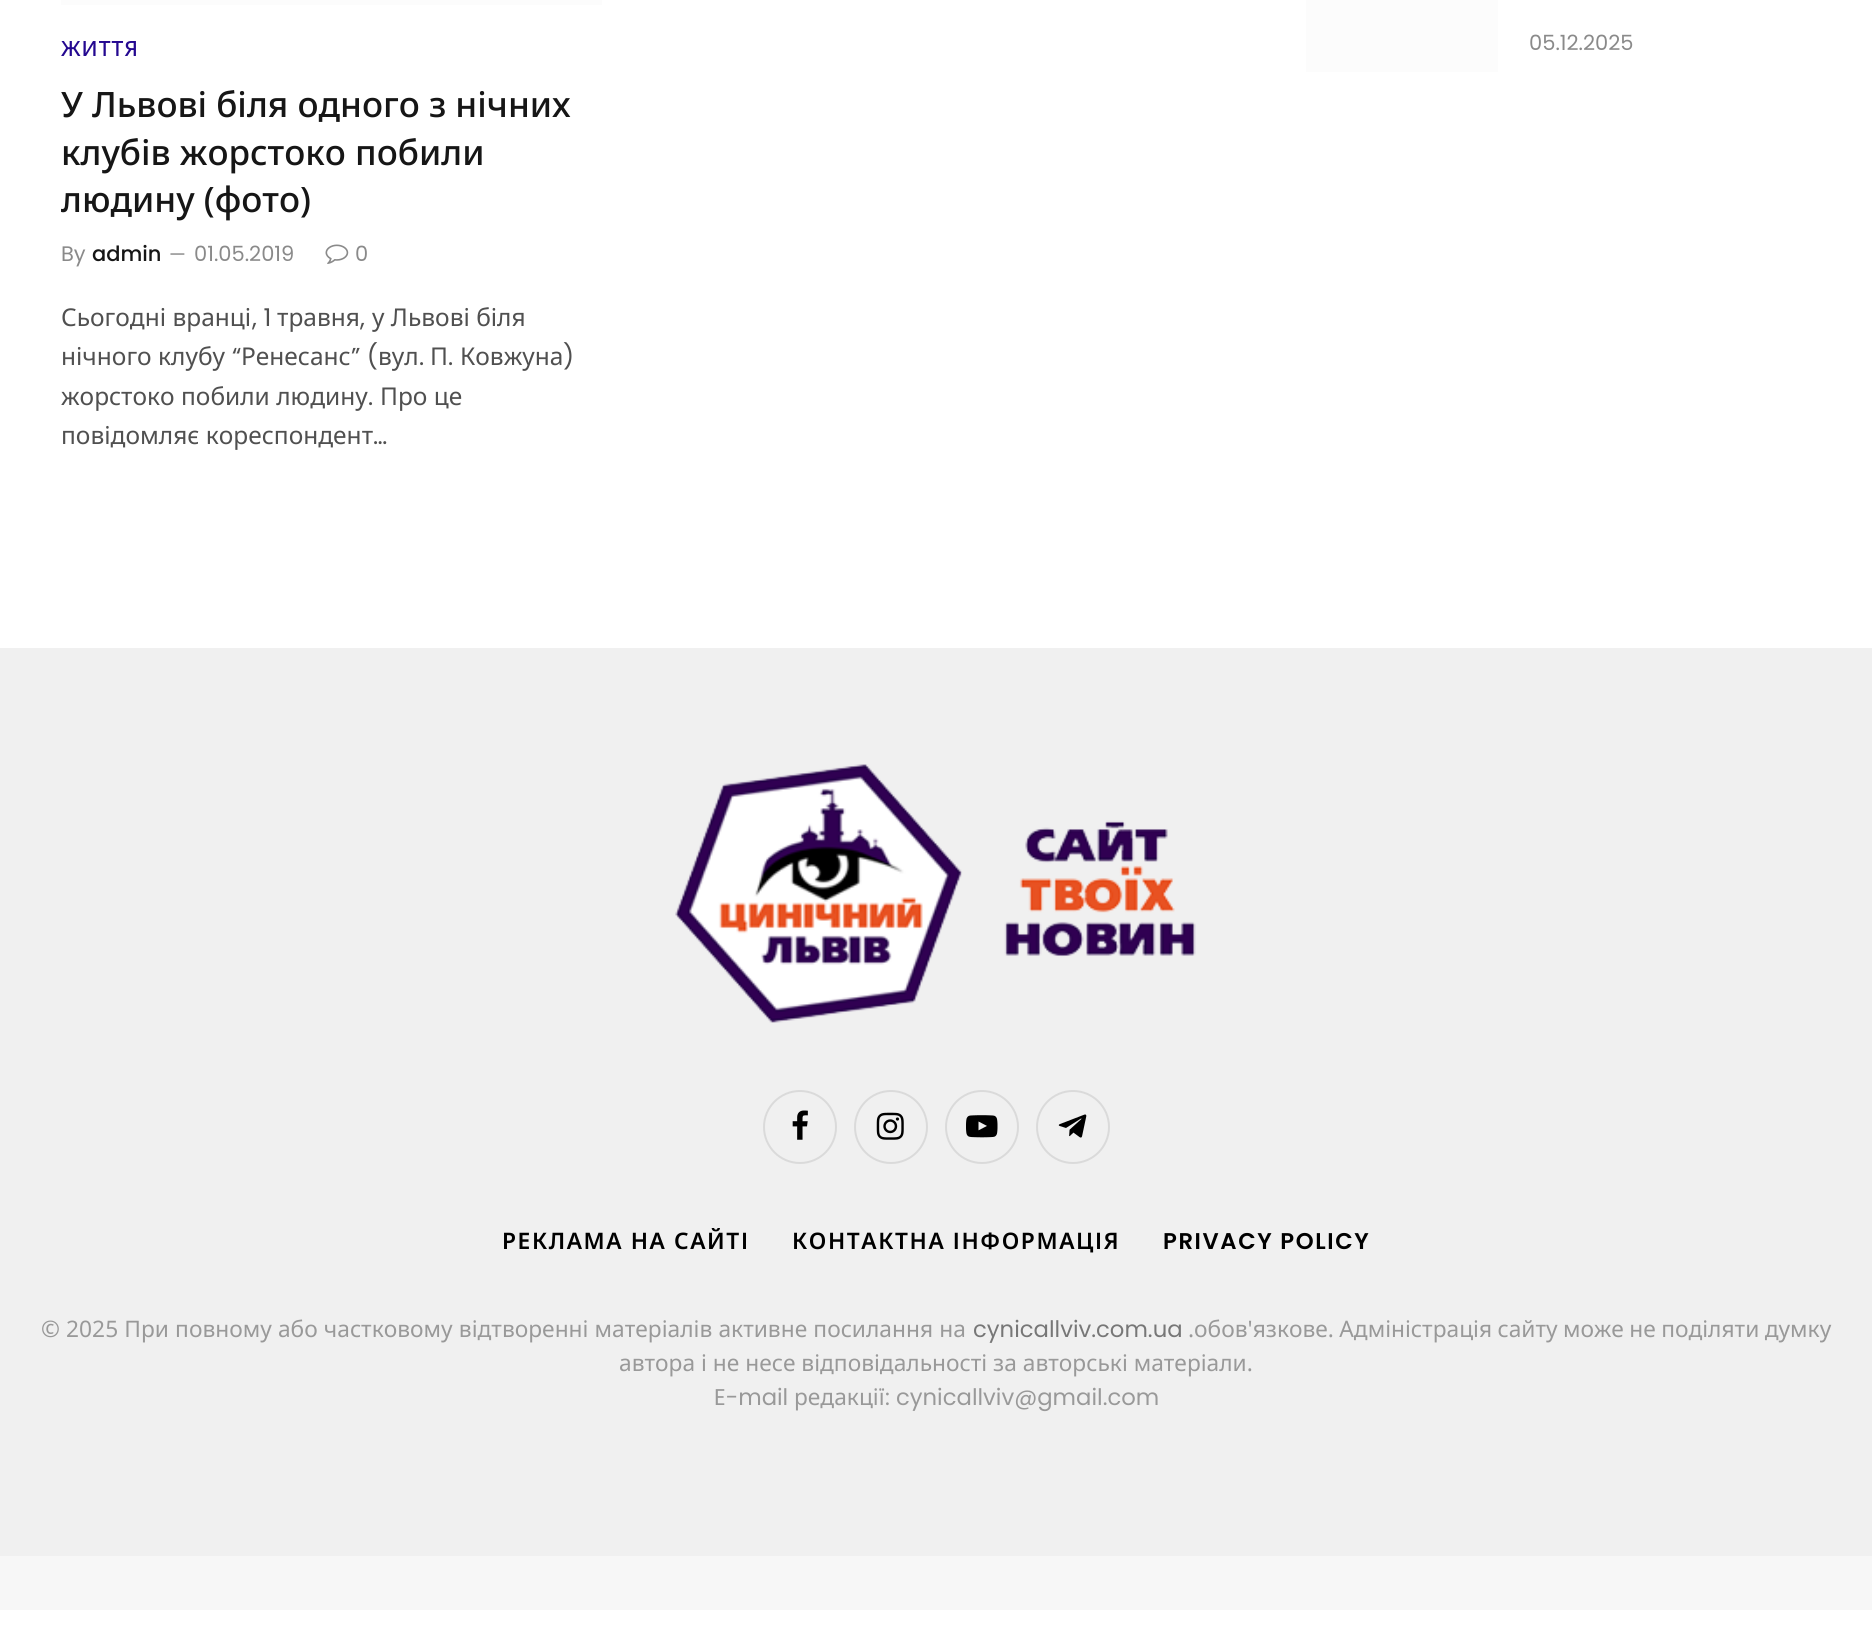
#include <cairo.h>
#include <math.h>
#include <stddef.h>


static void set_color(cairo_t *cr, unsigned color) {
    cairo_set_source_rgb(cr, (color >> 16) / 255.0, (color >> 8 & 255) / 255.0, (color & 255) / 255.0);
}

static void draw_text(cairo_t *cr, double x, double y, const char *s, const char *family, double size, int italic, int bold, unsigned color) {
    cairo_select_font_face(cr, family, italic ? CAIRO_FONT_SLANT_ITALIC : CAIRO_FONT_SLANT_NORMAL,
        bold ? CAIRO_FONT_WEIGHT_BOLD : CAIRO_FONT_WEIGHT_NORMAL);
    cairo_set_font_size(cr, size);
    set_color(cr, color);
    cairo_move_to(cr, x, y);
    cairo_show_text(cr, s);
}

static void draw_spaced(cairo_t *cr, double x, double y, const char *s, double letter, double word) {
    cairo_move_to(cr, x, y);
    while (*s) {
        char ch[5] = {0};
        int n = 0;
        do ch[n++] = *s++; while ((*s & 0xC0) == 0x80);
        cairo_show_text(cr, ch);
        cairo_rel_move_to(cr, letter + word * (*ch == ' '), 0);
    }
}

static void fill_rect(cairo_t *cr, double x, double y, double w, double h, unsigned color) {
    set_color(cr, color);
    cairo_rectangle(cr, x, y, w, h);
    cairo_fill(cr);
}

static void draw_image(cairo_t *cr, const char *path, double x, double y, double w, double h) {
    cairo_surface_t *image = cairo_image_surface_create_from_png(path);
    cairo_save(cr);
    cairo_set_source_surface(cr, image, x, y);
    cairo_rectangle(cr, x, y, w, h);
    cairo_fill(cr);
    cairo_restore(cr);
    cairo_surface_destroy(image);
}

int main(void) {
    cairo_surface_t *surface = cairo_image_surface_create(CAIRO_FORMAT_RGB24, 1872, 1634);
    cairo_t *cr = cairo_create(surface);
    cairo_font_options_t *options = cairo_font_options_create();
    cairo_font_options_set_hint_metrics(options, CAIRO_HINT_METRICS_OFF);
    cairo_font_options_set_hint_style(options, CAIRO_HINT_STYLE_NONE);
    cairo_set_font_options(cr, options);
    cairo_set_miter_limit(cr, 4);
    set_color(cr, 0xFFFFFF);
    cairo_paint(cr);
    fill_rect(cr, 61, 0, 541, 5, 0xFCFCFC);
    cairo_select_font_face(cr, "Noto Sans Medium", CAIRO_FONT_SLANT_NORMAL, CAIRO_FONT_WEIGHT_NORMAL);
    cairo_set_font_size(cr, 21);
    set_color(cr, 0x240890);
    draw_spaced(cr, 61, 56, "ЖИТТЯ", 1, 0);
    draw_text(cr, 61, 117, "У Львові біля одного з нічних", "Noto Sans Medium", 35, 0, 0, 0x161616);
    draw_text(cr, 61, 165, "клубів жорстоко побили", "Noto Sans Medium", 35, 0, 0, 0x161616);
    draw_text(cr, 61, 212, "людину (фото)", "Noto Sans Medium", 35, 0, 0, 0x161616);
    draw_text(cr, 61, 261, "By", "Poppins", 21, 0, 0, 0x8A8A8A);
    draw_text(cr, 92, 261, "admin", "Poppins Medium", 21, 0, 0, 0x161616);
    draw_text(cr, 169, 261, "—", "Poppins", 19, 0, 0, 0x8A8A8A);
    draw_text(cr, 194, 261, "01.05.2019", "Poppins", 21, 0, 0, 0x8A8A8A);
    draw_image(cr, "assets/img1.png", 325, 244, 24, 20);
    draw_text(cr, 355, 261, "0", "Poppins", 21, 0, 0, 0x8A8A8A);
    draw_text(cr, 61, 326, "Сьогодні вранці", "Noto Sans", 24.5, 0, 0, 0x505050);
    draw_text(cr, 252, 326, ", 1", "Poppins", 24.5, 0, 0, 0x505050);
    draw_text(cr, 277, 326, "травня", "Noto Sans", 24.5, 0, 0, 0x505050);
    draw_text(cr, 360, 326, ",", "Poppins", 24.5, 0, 0, 0x505050);
    draw_text(cr, 372, 326, "у Львові біля", "Noto Sans", 24.5, 0, 0, 0x505050);
    draw_text(cr, 61, 365, "нічного клубу", "Noto Sans", 24.5, 0, 0, 0x505050);
    draw_text(cr, 232, 365, "“", "Poppins", 24.5, 0, 0, 0x505050);
    draw_text(cr, 241, 365, "Ренесанс", "Noto Sans", 24.5, 0, 0, 0x505050);
    draw_text(cr, 351, 365, "” (", "Poppins", 24.5, 0, 0, 0x505050);
    draw_text(cr, 378, 365, "вул", "Noto Sans", 24.5, 0, 0, 0x505050);
    draw_text(cr, 419, 365, ".", "Poppins", 24.5, 0, 0, 0x505050);
    draw_text(cr, 430, 365, "П", "Noto Sans", 24.5, 0, 0, 0x505050);
    draw_text(cr, 448, 365, ".", "Poppins", 24.5, 0, 0, 0x505050);
    draw_text(cr, 460, 365, "Ковжуна", "Noto Sans", 24.5, 0, 0, 0x505050);
    draw_text(cr, 563, 365, ")", "Poppins", 24.5, 0, 0, 0x505050);
    draw_text(cr, 61, 405, "жорстоко побили людину", "Noto Sans", 24.5, 0, 0, 0x505050);
    draw_text(cr, 368, 405, ".", "Poppins", 24.5, 0, 0, 0x505050);
    draw_text(cr, 380, 405, "Про це", "Noto Sans", 24.5, 0, 0, 0x505050);
    draw_text(cr, 61, 444, "повідомляє кореспондент", "Noto Sans", 24.5, 0, 0, 0x505050);
    draw_text(cr, 373, 444, "…", "Poppins", 24.5, 0, 0, 0x505050);
    fill_rect(cr, 1306, 0, 192, 72, 0xFCFCFC);
    draw_text(cr, 1529, 50, "05.12.2025", "Poppins", 21, 0, 0, 0x8A8A8A);
    fill_rect(cr, 0, 1556, 1872, 54, 0xF7F7F7);
    fill_rect(cr, 0, 648, 1872, 908, 0xF0F0F0);
    draw_image(cr, "assets/img2.png", 675, 764, 521, 259);
    cairo_arc(cr, 800, 1127, 36, 0, 2 * M_PI);
    set_color(cr, 0xDADADA);
    cairo_stroke(cr);
    draw_image(cr, "assets/img3.png", 792, 1110, 16, 30);
    cairo_arc(cr, 891, 1127, 36, 0, 2 * M_PI);
    cairo_stroke(cr);
    draw_image(cr, "assets/img4.png", 876, 1112, 28, 28);
    cairo_arc(cr, 982, 1127, 36, 0, 2 * M_PI);
    cairo_stroke(cr);
    draw_image(cr, "assets/img5.png", 966, 1115, 32, 23);
    cairo_arc(cr, 1073, 1127, 36, 0, 2 * M_PI);
    cairo_stroke(cr);
    draw_image(cr, "assets/img6.png", 1058, 1114, 29, 24);
    cairo_select_font_face(cr, "Noto Sans SemiBold", CAIRO_FONT_SLANT_NORMAL, CAIRO_FONT_WEIGHT_NORMAL);
    cairo_set_font_size(cr, 22.75);
    set_color(cr, 0x000000);
    draw_spaced(cr, 502, 1249, "РЕКЛАМА НА САЙТІ", 1.6, 0);
    draw_spaced(cr, 792, 1249, "КОНТАКТНА ІНФОРМАЦІЯ", 1.6, 0);
    cairo_select_font_face(cr, "Poppins SemiBold", CAIRO_FONT_SLANT_NORMAL, CAIRO_FONT_WEIGHT_NORMAL);
    draw_spaced(cr, 1163, 1249, "PRIVACY POLICY", 1.6, 0);
    cairo_select_font_face(cr, "Noto Sans", CAIRO_FONT_SLANT_NORMAL, CAIRO_FONT_WEIGHT_NORMAL);
    set_color(cr, 0x999999);
    draw_spaced(cr, 41, 1337, "© 2025 При повному або частковому відтворенні матеріалів активне посилання на", 0, 0.25);
    draw_text(cr, 973, 1337, "cynicallviv.com.ua", "Poppins", 22.75, 0, 0, 0x777777);
    cairo_select_font_face(cr, "Noto Sans", CAIRO_FONT_SLANT_NORMAL, CAIRO_FONT_WEIGHT_NORMAL);
    set_color(cr, 0x999999);
    draw_spaced(cr, 1188, 1337, ".обов'язкове. Адміністрація сайту може не поділяти думку", 0, -0.5);
    draw_text(cr, 619, 1371, "автора і не несе відповідальності за авторські матеріали.", "Noto Sans", 22.75, 0, 0, 0x999999);
    draw_text(cr, 714, 1405, "E-mail", "Poppins", 22.75, 0, 0, 0x999999);
    draw_text(cr, 794, 1405, "редакції", "Noto Sans", 22.75, 0, 0, 0x999999);
    draw_text(cr, 885, 1405, ": cynicallviv@gmail.com", "Poppins", 22.75, 0, 0, 0x999999);
    cairo_surface_write_to_png(surface, "output.png");
    cairo_font_options_destroy(options);
    cairo_destroy(cr);
    cairo_surface_destroy(surface);
    return 0;
}
